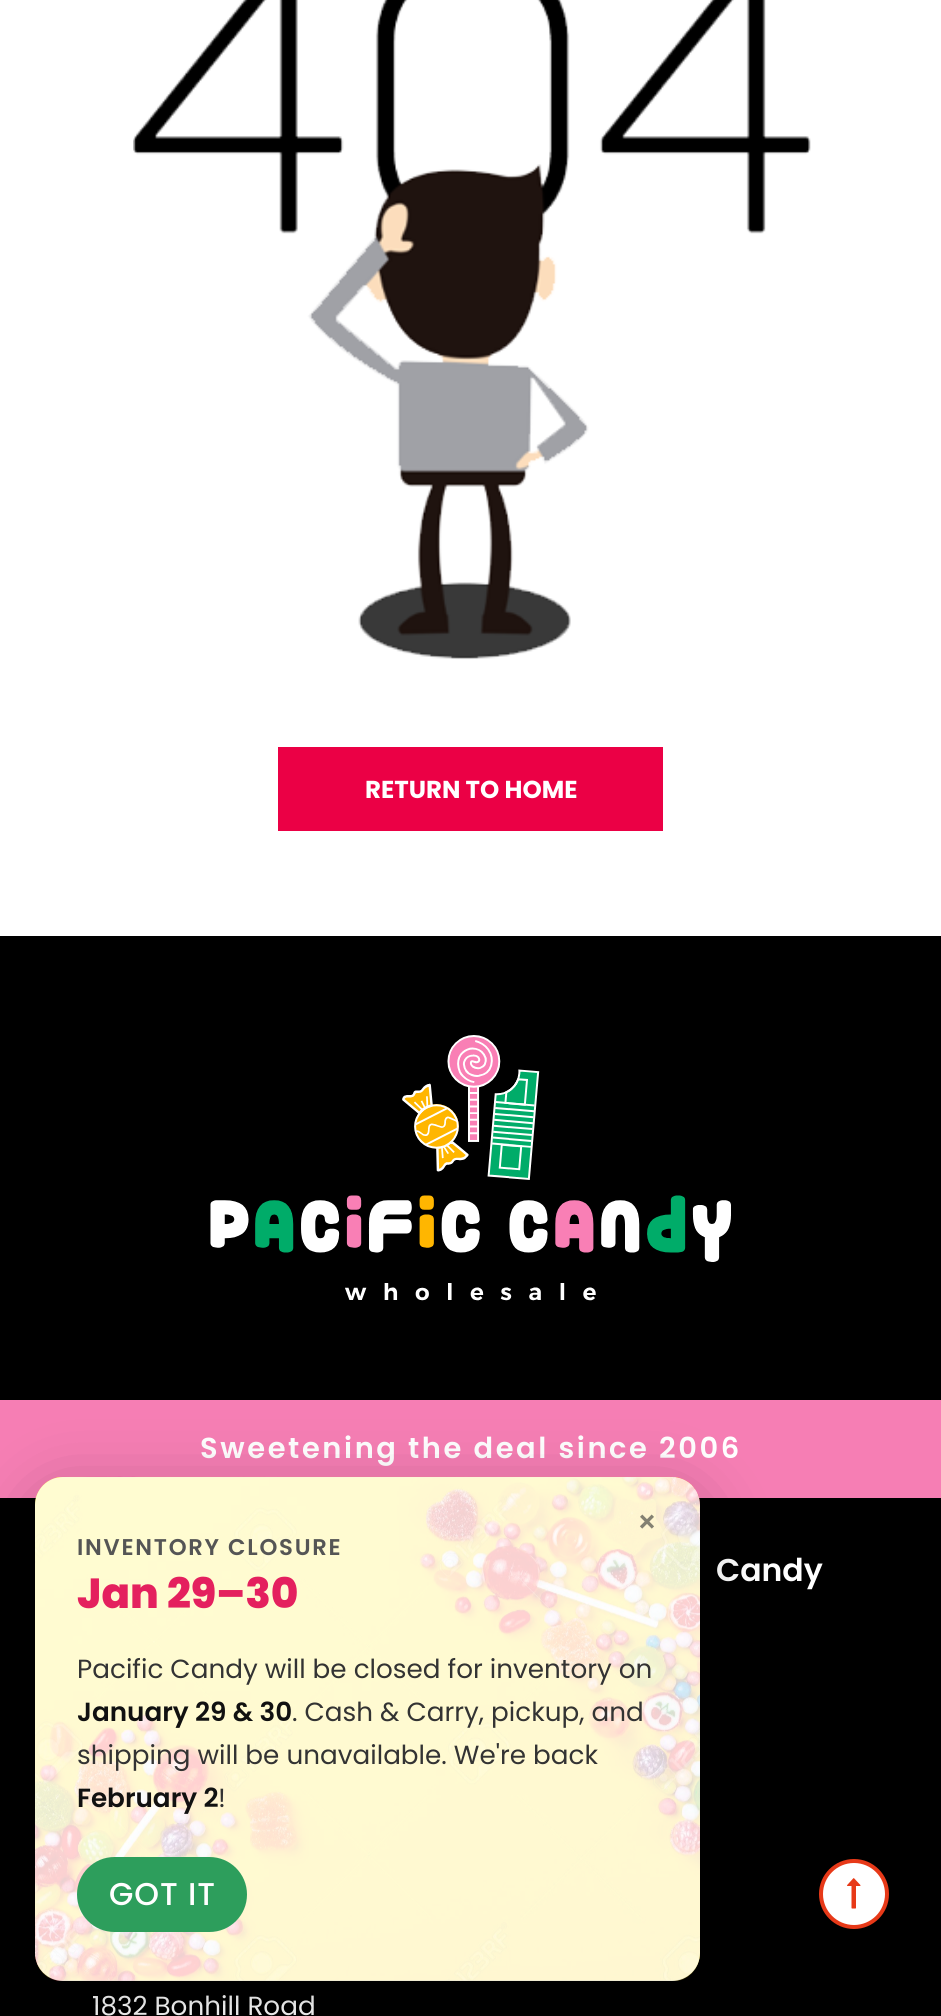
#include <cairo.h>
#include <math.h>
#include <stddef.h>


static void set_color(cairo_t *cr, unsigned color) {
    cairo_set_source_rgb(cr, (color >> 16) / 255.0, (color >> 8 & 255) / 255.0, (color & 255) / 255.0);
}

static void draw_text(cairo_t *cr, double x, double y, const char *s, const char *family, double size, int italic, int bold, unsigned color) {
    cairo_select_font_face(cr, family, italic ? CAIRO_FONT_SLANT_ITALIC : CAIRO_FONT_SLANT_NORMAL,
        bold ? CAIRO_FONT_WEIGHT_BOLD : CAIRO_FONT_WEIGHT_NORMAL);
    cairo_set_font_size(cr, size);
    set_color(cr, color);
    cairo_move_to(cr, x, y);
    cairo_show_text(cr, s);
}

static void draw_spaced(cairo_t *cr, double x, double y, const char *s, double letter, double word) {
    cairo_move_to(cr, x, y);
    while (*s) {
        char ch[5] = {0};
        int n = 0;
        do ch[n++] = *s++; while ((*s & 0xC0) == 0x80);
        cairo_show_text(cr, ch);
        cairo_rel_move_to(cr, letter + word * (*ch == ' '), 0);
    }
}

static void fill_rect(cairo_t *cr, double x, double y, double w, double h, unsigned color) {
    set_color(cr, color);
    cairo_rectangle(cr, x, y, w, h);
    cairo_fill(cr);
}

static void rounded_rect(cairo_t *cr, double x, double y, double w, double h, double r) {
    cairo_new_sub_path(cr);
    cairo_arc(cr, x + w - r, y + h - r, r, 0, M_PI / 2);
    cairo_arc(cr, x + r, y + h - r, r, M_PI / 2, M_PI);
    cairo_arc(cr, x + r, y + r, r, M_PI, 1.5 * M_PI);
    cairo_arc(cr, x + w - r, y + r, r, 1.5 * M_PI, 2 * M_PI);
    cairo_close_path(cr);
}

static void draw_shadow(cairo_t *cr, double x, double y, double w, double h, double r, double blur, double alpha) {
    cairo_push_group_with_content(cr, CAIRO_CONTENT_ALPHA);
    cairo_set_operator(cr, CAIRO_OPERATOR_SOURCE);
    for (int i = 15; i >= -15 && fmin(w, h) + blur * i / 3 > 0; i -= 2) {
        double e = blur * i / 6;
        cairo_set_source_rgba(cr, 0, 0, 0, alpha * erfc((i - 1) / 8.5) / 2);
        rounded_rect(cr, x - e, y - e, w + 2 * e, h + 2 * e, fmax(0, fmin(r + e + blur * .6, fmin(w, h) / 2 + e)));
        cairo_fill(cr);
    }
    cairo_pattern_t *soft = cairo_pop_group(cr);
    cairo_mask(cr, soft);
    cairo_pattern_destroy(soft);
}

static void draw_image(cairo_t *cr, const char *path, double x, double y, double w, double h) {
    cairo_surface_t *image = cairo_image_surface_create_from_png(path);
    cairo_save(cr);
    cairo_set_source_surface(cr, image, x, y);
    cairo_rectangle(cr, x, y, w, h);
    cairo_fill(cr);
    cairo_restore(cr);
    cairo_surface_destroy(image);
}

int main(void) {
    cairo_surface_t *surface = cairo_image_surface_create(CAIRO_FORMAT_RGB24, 941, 2016);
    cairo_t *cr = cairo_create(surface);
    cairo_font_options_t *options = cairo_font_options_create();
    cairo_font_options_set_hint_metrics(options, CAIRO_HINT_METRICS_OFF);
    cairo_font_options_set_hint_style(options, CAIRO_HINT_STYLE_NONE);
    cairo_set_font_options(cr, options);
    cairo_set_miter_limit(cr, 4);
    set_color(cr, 0xFFFFFF);
    cairo_paint(cr);
    draw_image(cr, "assets/img1.png", 133, 0, 678, 660);
    fill_rect(cr, 278, 747, 385, 84, 0xEB0045);
    draw_text(cr, 365, 798, "RETURN TO HOME", "Poppins", 24.5, 0, 1, 0xFFFFFF);
    fill_rect(cr, 0, 936, 941, 1080, 0x000000);
    draw_image(cr, "assets/img2.png", 210, 1035, 521, 266);
    fill_rect(cr, 0, 1400, 941, 98, 0xF67EB4);
    cairo_select_font_face(cr, "Poppins SemiBold", CAIRO_FONT_SLANT_NORMAL, CAIRO_FONT_WEIGHT_NORMAL);
    cairo_set_font_size(cr, 28.9);
    set_color(cr, 0xFFFFFF);
    draw_spaced(cr, 200, 1458, "Sweetening the deal since 2006", 2.6, 0);
    draw_text(cr, 716, 1581, "Candy", "Poppins SemiBold", 31.5, 0, 0, 0xFFFFFF);
    draw_text(cr, 92, 2015, "1832 Bonhill Road", "Poppins", 26.25, 0, 0, 0xFFFFFF);
    cairo_new_path(cr);
    cairo_arc(cr, 854, 1894, 33, 0, 2 * M_PI);
    cairo_fill_preserve(cr);
    set_color(cr, 0xE73918);
    cairo_set_line_width(cr, 4);
    cairo_stroke(cr);
    draw_image(cr, "assets/img3.png", 847, 1878, 14, 31);
    set_color(cr, 0x000000);
    draw_shadow(cr, 35, 1495, 665, 504, 28, 35, 0.25);
    draw_image(cr, "assets/img4.png", 35, 1476, 665, 505);
    cairo_set_source_rgba(cr, 1, 1, 1, 0.82);
    rounded_rect(cr, 35, 1477, 665, 504, 28);
    cairo_fill(cr);
    draw_text(cr, 636, 1533, "×", "Poppins Medium", 31.5, 0, 0, 0x848172);
    cairo_select_font_face(cr, "Poppins SemiBold", CAIRO_FONT_SLANT_NORMAL, CAIRO_FONT_WEIGHT_NORMAL);
    cairo_set_font_size(cr, 22.75);
    set_color(cr, 0x555555);
    draw_spaced(cr, 77, 1555, "INVENTORY CLOSURE", 1.75, 0);
    draw_text(cr, 77, 1608, "Jan 29–30", "Poppins ExtraBold", 42, 0, 0, 0xE4205E);
    draw_text(cr, 77, 1678, "Pacific Candy will be closed for inventory on", "Poppins", 26.25, 0, 0, 0x333333);
    draw_text(cr, 77, 1721, "January 29 & 30", "Poppins SemiBold", 26.25, 0, 0, 0x111111);
    draw_text(cr, 292, 1721, ". Cash & Carry, pickup, and", "Poppins", 26.25, 0, 0, 0x333333);
    draw_text(cr, 77, 1764, "shipping will be unavailable. We're back", "Poppins", 26.25, 0, 0, 0x333333);
    draw_text(cr, 77, 1807, "February 2", "Poppins SemiBold", 26.25, 0, 0, 0x111111);
    draw_text(cr, 218, 1807, "!", "Poppins", 26.25, 0, 0, 0x333333);
    set_color(cr, 0x2D9E5C);
    rounded_rect(cr, 77, 1857, 170, 75, 37.5);
    cairo_fill(cr);
    cairo_select_font_face(cr, "Poppins Medium", CAIRO_FONT_SLANT_NORMAL, CAIRO_FONT_WEIGHT_NORMAL);
    cairo_set_font_size(cr, 31.5);
    set_color(cr, 0xFFFFFF);
    draw_spaced(cr, 109, 1905, "GOT IT", 1, 0);
    cairo_surface_write_to_png(surface, "output.png");
    cairo_font_options_destroy(options);
    cairo_destroy(cr);
    cairo_surface_destroy(surface);
    return 0;
}
